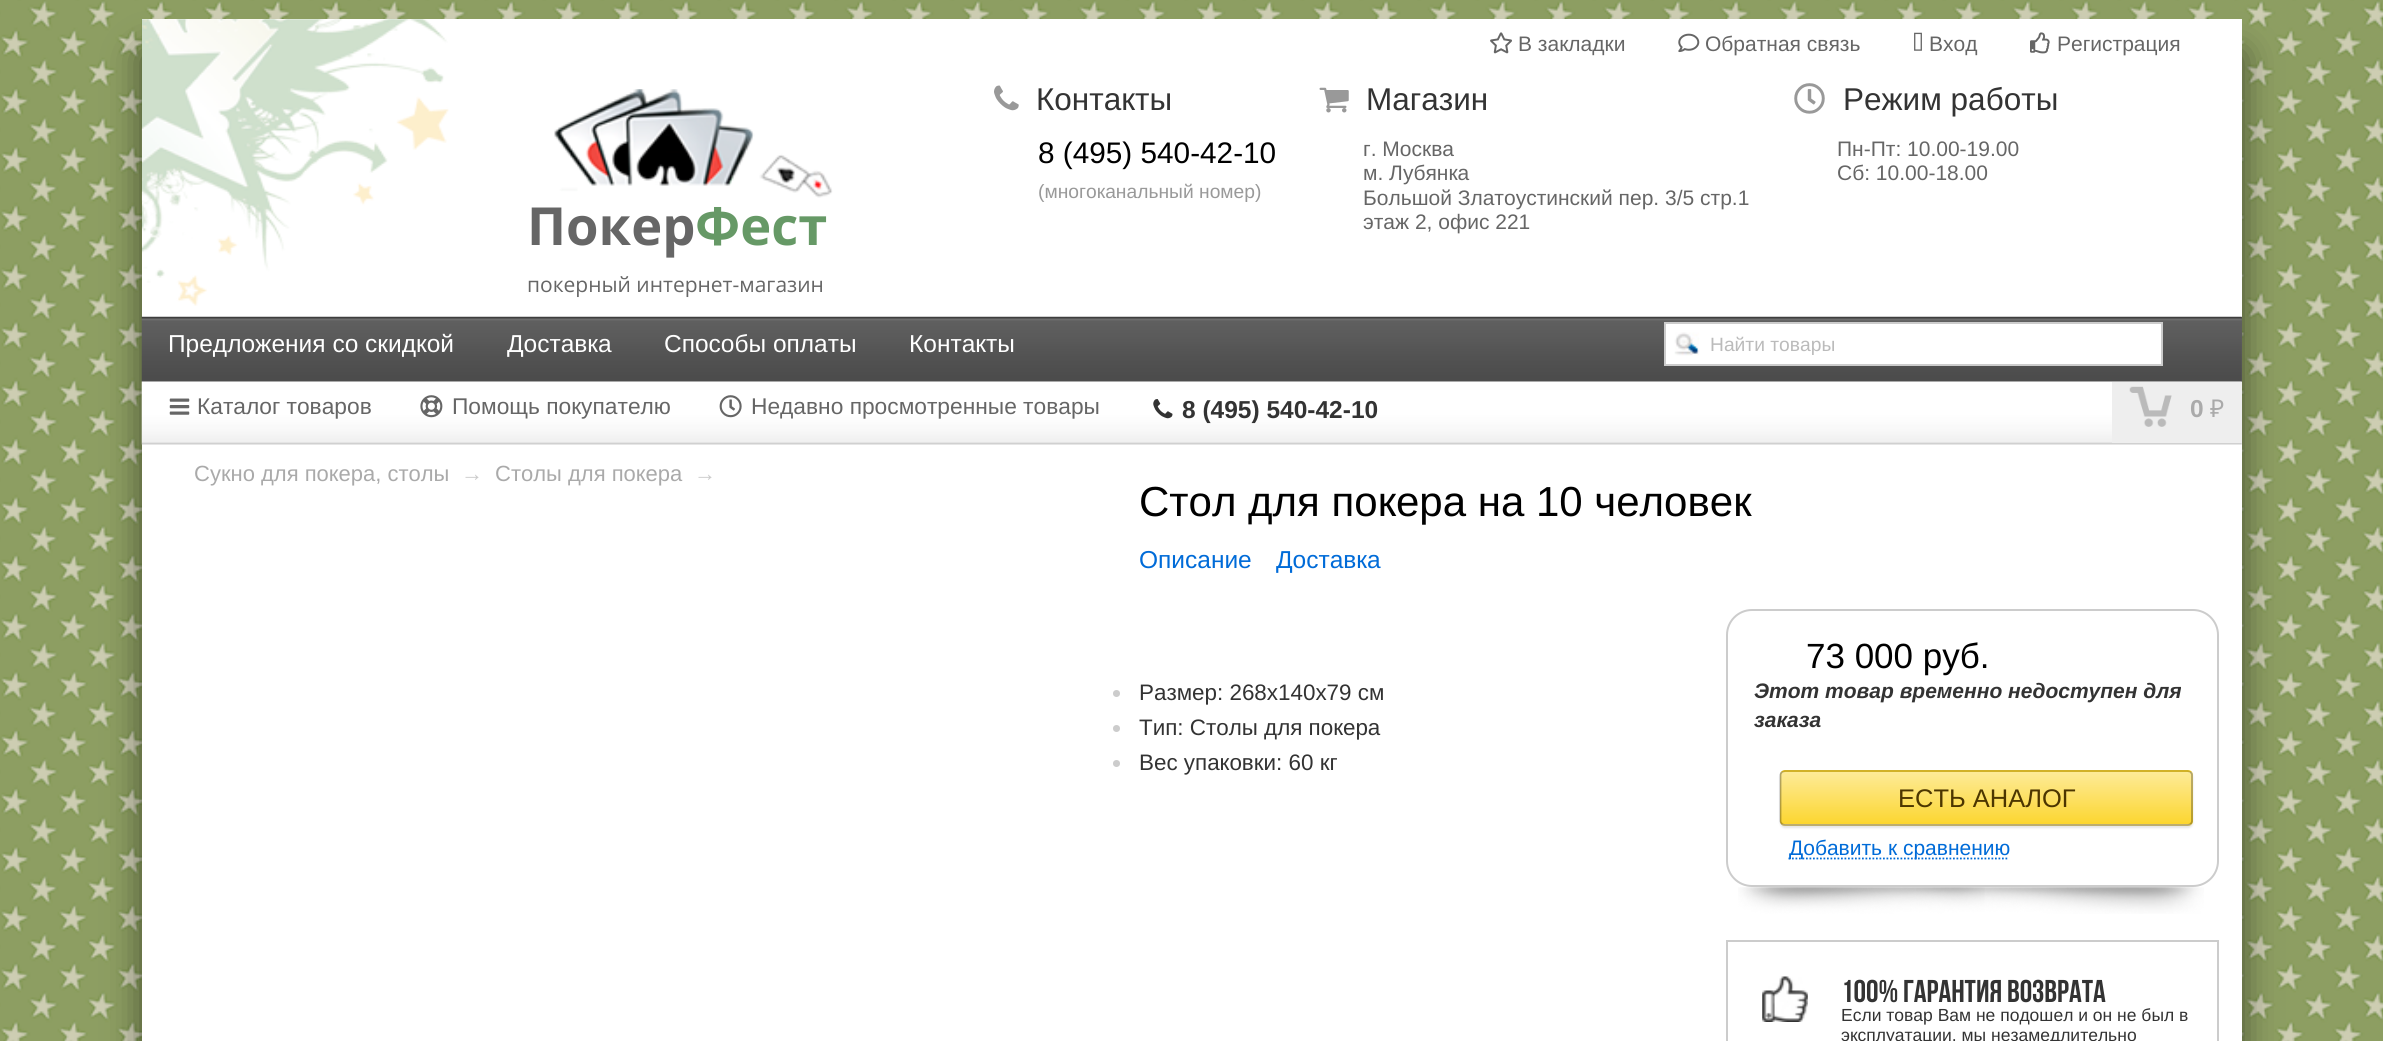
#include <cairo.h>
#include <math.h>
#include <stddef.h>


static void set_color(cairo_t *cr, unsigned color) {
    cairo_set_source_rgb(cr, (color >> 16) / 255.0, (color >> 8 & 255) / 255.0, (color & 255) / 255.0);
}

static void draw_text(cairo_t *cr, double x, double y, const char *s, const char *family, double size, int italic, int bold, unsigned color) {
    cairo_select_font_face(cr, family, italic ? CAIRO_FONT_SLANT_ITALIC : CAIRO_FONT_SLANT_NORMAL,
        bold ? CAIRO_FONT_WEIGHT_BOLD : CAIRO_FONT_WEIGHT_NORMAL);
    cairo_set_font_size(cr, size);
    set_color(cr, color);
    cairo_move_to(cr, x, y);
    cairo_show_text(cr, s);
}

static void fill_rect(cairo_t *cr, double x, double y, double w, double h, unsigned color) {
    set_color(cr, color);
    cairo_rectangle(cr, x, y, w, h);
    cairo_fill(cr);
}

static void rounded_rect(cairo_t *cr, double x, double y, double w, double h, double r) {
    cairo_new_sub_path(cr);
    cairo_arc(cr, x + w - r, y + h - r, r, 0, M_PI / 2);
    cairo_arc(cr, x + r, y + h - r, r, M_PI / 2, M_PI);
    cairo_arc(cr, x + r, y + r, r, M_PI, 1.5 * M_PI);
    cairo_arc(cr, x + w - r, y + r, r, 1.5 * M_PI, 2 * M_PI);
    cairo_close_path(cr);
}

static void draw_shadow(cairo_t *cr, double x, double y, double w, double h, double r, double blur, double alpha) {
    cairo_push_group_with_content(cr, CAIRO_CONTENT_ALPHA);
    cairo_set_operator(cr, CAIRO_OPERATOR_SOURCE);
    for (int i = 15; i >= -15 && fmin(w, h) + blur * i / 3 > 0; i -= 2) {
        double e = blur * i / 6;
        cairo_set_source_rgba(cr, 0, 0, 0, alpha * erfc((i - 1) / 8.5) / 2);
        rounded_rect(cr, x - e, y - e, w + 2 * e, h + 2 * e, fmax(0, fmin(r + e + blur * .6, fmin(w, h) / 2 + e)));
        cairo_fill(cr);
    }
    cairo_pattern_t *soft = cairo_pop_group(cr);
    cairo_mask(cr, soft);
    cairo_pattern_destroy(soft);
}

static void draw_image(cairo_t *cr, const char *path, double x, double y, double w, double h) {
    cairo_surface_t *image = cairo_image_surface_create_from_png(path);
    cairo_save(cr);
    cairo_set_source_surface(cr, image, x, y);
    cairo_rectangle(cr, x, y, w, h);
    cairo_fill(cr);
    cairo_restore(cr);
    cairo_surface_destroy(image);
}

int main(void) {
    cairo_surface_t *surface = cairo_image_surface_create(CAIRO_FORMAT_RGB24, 2383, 1041);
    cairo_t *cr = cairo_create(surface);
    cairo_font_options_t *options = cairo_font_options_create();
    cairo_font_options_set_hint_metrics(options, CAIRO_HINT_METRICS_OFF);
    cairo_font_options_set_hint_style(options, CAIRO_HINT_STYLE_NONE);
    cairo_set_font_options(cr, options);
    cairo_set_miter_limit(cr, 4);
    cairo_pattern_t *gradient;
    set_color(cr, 0xFFFFFF);
    cairo_paint(cr);
    draw_image(cr, "assets/img1.png", 0, 0, 2383, 1041);
    set_color(cr, 0x000000);
    draw_shadow(cr, 142, 54, 2100, 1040, 0, 17.5, 0.5);
    fill_rect(cr, 142, 19, 2100, 1022, 0xFFFFFF);
    draw_image(cr, "assets/img2.png", 141, 19, 308, 287);
    draw_image(cr, "assets/img3.png", 1490, 32, 22, 22);
    draw_text(cr, 1518, 51, "В закладки", "Liberation Sans", 21, 0, 0, 0x666666);
    draw_image(cr, "assets/img4.png", 1678, 33, 22, 20);
    draw_text(cr, 1705, 51, "Обратная связь", "Liberation Sans", 21, 0, 0, 0x666666);
    draw_image(cr, "assets/img5.png", 1914, 32, 8, 19);
    draw_text(cr, 1929, 51, "Вход", "Liberation Sans", 21, 0, 0, 0x666666);
    draw_image(cr, "assets/img6.png", 2030, 32, 20, 22);
    draw_text(cr, 2057, 51, "Регистрация", "Liberation Sans", 21, 0, 0, 0x666666);
    draw_image(cr, "assets/img7.png", 994, 85, 25, 26);
    draw_text(cr, 1036, 110, "Контакты", "Liberation Sans", 31.5, 0, 0, 0x333333);
    draw_text(cr, 1038, 163, "8 (495) 540-42-10", "Liberation Sans", 29.75, 0, 0, 0x000000);
    draw_text(cr, 1038, 198, "(многоканальный номер)", "Liberation Sans", 19.25, 0, 0, 0x999999);
    draw_image(cr, "assets/img8.png", 1319, 87, 30, 26);
    draw_text(cr, 1366, 110, "Магазин", "Liberation Sans", 31.5, 0, 0, 0x333333);
    draw_text(cr, 1363, 156, "г. Москва", "Liberation Sans", 21, 0, 0, 0x666666);
    draw_text(cr, 1363, 180, "м. Лубянка", "Liberation Sans", 21, 0, 0, 0x666666);
    draw_text(cr, 1363, 205, "Большой Златоустинский пер. 3/5 стр.1", "Liberation Sans", 21, 0, 0, 0x666666);
    draw_text(cr, 1363, 229, "этаж 2, офис 221", "Liberation Sans", 21, 0, 0, 0x666666);
    draw_image(cr, "assets/img9.png", 1794, 83, 31, 31);
    draw_text(cr, 1843, 110, "Режим работы", "Liberation Sans", 31.5, 0, 0, 0x333333);
    draw_text(cr, 1837, 156, "Пн-Пт: 10.00-19.00", "Liberation Sans", 21, 0, 0, 0x666666);
    draw_text(cr, 1837, 180, "Сб: 10.00-18.00", "Liberation Sans", 21, 0, 0, 0x666666);
    draw_image(cr, "assets/img10.png", 554, 89, 279, 109);
    draw_text(cr, 527, 245, "Покер", "Open Sans", 52.5, 0, 1, 0x666666);
    draw_text(cr, 695, 245, "Фест", "Open Sans", 52.5, 0, 1, 0x669966);
    draw_text(cr, 527, 292, "покерный интернет-магазин", "Open Sans", 21, 0, 0, 0x666666);
    fill_rect(cr, 142, 317, 2100, 65, 0x626262);
    draw_image(cr, "assets/img11.png", 141, 316, 2101, 66);
    draw_text(cr, 168, 352, "Предложения со скидкой", "Liberation Sans", 24.5, 0, 0, 0xFFFFFF);
    draw_text(cr, 507, 352, "Доставка", "Liberation Sans", 24.5, 0, 0, 0xFFFFFF);
    draw_text(cr, 664, 352, "Способы оплаты", "Liberation Sans", 24.5, 0, 0, 0xFFFFFF);
    draw_text(cr, 909, 352, "Контакты", "Liberation Sans", 24.5, 0, 0, 0xFFFFFF);
    fill_rect(cr, 1666, 324, 495, 40, 0xFFFFFF);
    draw_image(cr, "assets/img12.png", 1674, 332, 26, 24);
    cairo_rectangle(cr, 1665, 323, 497, 42);
    set_color(cr, 0xCCCCCC);
    cairo_stroke(cr);
    draw_text(cr, 1710, 351, "Найти товары", "Liberation Sans", 19.25, 0, 0, 0xBBBBBB);
    draw_image(cr, "assets/img13.png", 141, 381, 2101, 64);
    draw_image(cr, "assets/img14.png", 169, 398, 21, 17);
    draw_text(cr, 197, 414, "Каталог товаров", "Liberation Sans", 22.75, 0, 0, 0x666666);
    draw_image(cr, "assets/img15.png", 420, 395, 23, 23);
    draw_text(cr, 452, 414, "Помощь покупателю", "Liberation Sans", 22.75, 0, 0, 0x666666);
    draw_image(cr, "assets/img16.png", 719, 395, 23, 23);
    draw_text(cr, 751, 414, "Недавно просмотренные товары", "Liberation Sans", 22.75, 0, 0, 0x666666);
    draw_image(cr, "assets/img17.png", 1153, 399, 20, 20);
    draw_text(cr, 1182, 418, "8 (495) 540-42-10", "Liberation Sans", 24.5, 0, 1, 0x333333);
    fill_rect(cr, 2112, 382, 130, 61, 0xEEEEEE);
    draw_image(cr, "assets/img18.png", 2129, 386, 43, 41);
    draw_text(cr, 2190, 417, "0", "Liberation Sans", 24.5, 0, 1, 0xAAAAAA);
    draw_text(cr, 2210, 417, "₽", "Noto Sans", 24.5, 0, 0, 0xAAAAAA);
    draw_text(cr, 194, 481, "Сукно для покера, столы", "Liberation Sans", 22, 0, 0, 0xAAAAAA);
    draw_text(cr, 461, 481, "→", "Liberation Sans", 22, 0, 0, 0xCCCCCC);
    draw_text(cr, 495, 481, "Столы для покера", "Liberation Sans", 22, 0, 0, 0xAAAAAA);
    draw_text(cr, 694, 481, "→", "Liberation Sans", 22, 0, 0, 0xCCCCCC);
    draw_text(cr, 1139, 516, "Стол для покера на 10 человек", "Liberation Sans", 42, 0, 0, 0x000000);
    draw_text(cr, 1139, 568, "Описание", "Liberation Sans", 24.5, 0, 0, 0x006BD8);
    draw_text(cr, 1276, 568, "Доставка", "Liberation Sans", 24.5, 0, 0, 0x006BD8);
    set_color(cr, 0xCCCCCC);
    cairo_new_path(cr);
    cairo_arc(cr, 1116.5, 693.5, 3.5, 0, 2 * M_PI);
    cairo_fill(cr);
    draw_text(cr, 1139, 700, "Размер: 268х140х79 см", "Liberation Sans", 22.4, 0, 0, 0x333333);
    set_color(cr, 0xCCCCCC);
    cairo_new_path(cr);
    cairo_arc(cr, 1116.5, 728.5, 3.5, 0, 2 * M_PI);
    cairo_fill(cr);
    draw_text(cr, 1139, 735, "Тип: Столы для покера", "Liberation Sans", 22.4, 0, 0, 0x333333);
    set_color(cr, 0xCCCCCC);
    cairo_new_path(cr);
    cairo_arc(cr, 1116.5, 763.5, 3.5, 0, 2 * M_PI);
    cairo_fill(cr);
    draw_text(cr, 1139, 770, "Вес упаковки: 60 кг", "Liberation Sans", 22.4, 0, 0, 0x333333);
    rounded_rect(cr, 1727, 610, 491, 276, 25);
    set_color(cr, 0xCCCCCC);
    cairo_stroke(cr);
    draw_text(cr, 1806, 668, "73 000 руб.", "Liberation Sans", 35, 0, 0, 0x000000);
    draw_text(cr, 1754, 698, "Этот товар временно недоступен для", "Liberation Sans", 21, 1, 1, 0x333333);
    draw_text(cr, 1754, 727, "заказа", "Liberation Sans", 21, 1, 1, 0x333333);
    set_color(cr, 0x000000);
    draw_shadow(cr, 1780, 772, 413, 56, 5, 1, 0.1);
    set_color(cr, 0xFCD630);
    rounded_rect(cr, 1780, 770, 413, 56, 5);
    cairo_fill(cr);
    cairo_save(cr);
    rounded_rect(cr, 1780, 770, 413, 56, 5);
    cairo_clip(cr);
    gradient = cairo_pattern_create_linear(1986, 772, 1986, 824);
    cairo_pattern_add_color_stop_rgba(gradient, 0, 1, 1, 1, 0.5);
    cairo_pattern_add_color_stop_rgba(gradient, 1, 1, 1, 1, 0);
    cairo_set_source(cr, gradient);
    cairo_pattern_destroy(gradient);
    cairo_rectangle(cr, 1780, 772, 413, 50);
    cairo_fill(cr);
    gradient = cairo_pattern_create_linear(1986, 824, 1986, 877);
    cairo_pattern_add_color_stop_rgba(gradient, 0, 1, 1, 1, 0.5);
    cairo_pattern_add_color_stop_rgba(gradient, 1, 1, 1, 1, 0);
    cairo_set_source(cr, gradient);
    cairo_pattern_destroy(gradient);
    cairo_rectangle(cr, 1780, 824, 413, 2);
    cairo_fill(cr);
    cairo_restore(cr);
    cairo_new_path(cr);
    cairo_move_to(cr, 1782, 772);
    cairo_line_to(cr, 1785, 771);
    cairo_line_to(cr, 2187.5, 771);
    cairo_line_to(cr, 2190.5, 772);
    cairo_set_source_rgba(cr, 0, 0, 0, 0.2);
    cairo_set_line_width(cr, 1.8);
    cairo_stroke(cr);
    cairo_new_path(cr);
    cairo_move_to(cr, 2190.5, 772);
    cairo_curve_to(cr, 2191.5, 773, 2192, 774, 2192, 775);
    cairo_line_to(cr, 2192, 821);
    cairo_curve_to(cr, 2192, 822, 2191.5, 823, 2190.5, 824);
    cairo_curve_to(cr, 2190, 824.5, 2188.5, 825, 2187.5, 825);
    cairo_line_to(cr, 1785, 825);
    cairo_curve_to(cr, 1784, 825, 1782.5, 824.5, 1782, 824);
    cairo_curve_to(cr, 1781, 823, 1780.5, 822, 1780.5, 821);
    cairo_line_to(cr, 1780.5, 775);
    cairo_curve_to(cr, 1780.5, 774, 1781, 773, 1782, 772);
    cairo_set_source_rgba(cr, 0, 0, 0, 0.3);
    cairo_stroke(cr);
    draw_text(cr, 1898, 807, "ЕСТЬ АНАЛОГ", "Liberation Sans", 25.5, 0, 0, 0x4C3600);
    cairo_new_path(cr);
    cairo_move_to(cr, 1788.5, 858.5);
    cairo_line_to(cr, 2009, 858.5);
    set_color(cr, 0x006BD8);
    cairo_set_dash(cr, (double[]){1.75, 1.75}, 2, 0);
    cairo_stroke(cr);
    draw_text(cr, 1789, 855, "Добавить к сравнению", "Liberation Sans", 21, 0, 0, 0x006BD8);
    draw_image(cr, "assets/img19.png", 1738, 887, 466, 27);
    cairo_rectangle(cr, 1727, 941, 491, 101);
    set_color(cr, 0xCCCCCC);
    cairo_set_line_width(cr, 2);
    cairo_set_dash(cr, NULL, 0, 0);
    cairo_stroke(cr);
    draw_image(cr, "assets/img20.png", 1762, 976, 46, 46);
    draw_text(cr, 1841, 1002, "100% ГАРАНТИЯ ВОЗВРАТА", "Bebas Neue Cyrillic", 31.5, 0, 0, 0x333333);
    draw_text(cr, 1841, 1021, "Если товар Вам не подошел и он не был в", "Liberation Sans", 17.5, 0, 0, 0x333333);
    draw_text(cr, 1841, 1041, "эксплуатации, мы незамедлительно", "Liberation Sans", 17.5, 0, 0, 0x333333);
    cairo_surface_write_to_png(surface, "output.png");
    cairo_font_options_destroy(options);
    cairo_destroy(cr);
    cairo_surface_destroy(surface);
    return 0;
}
